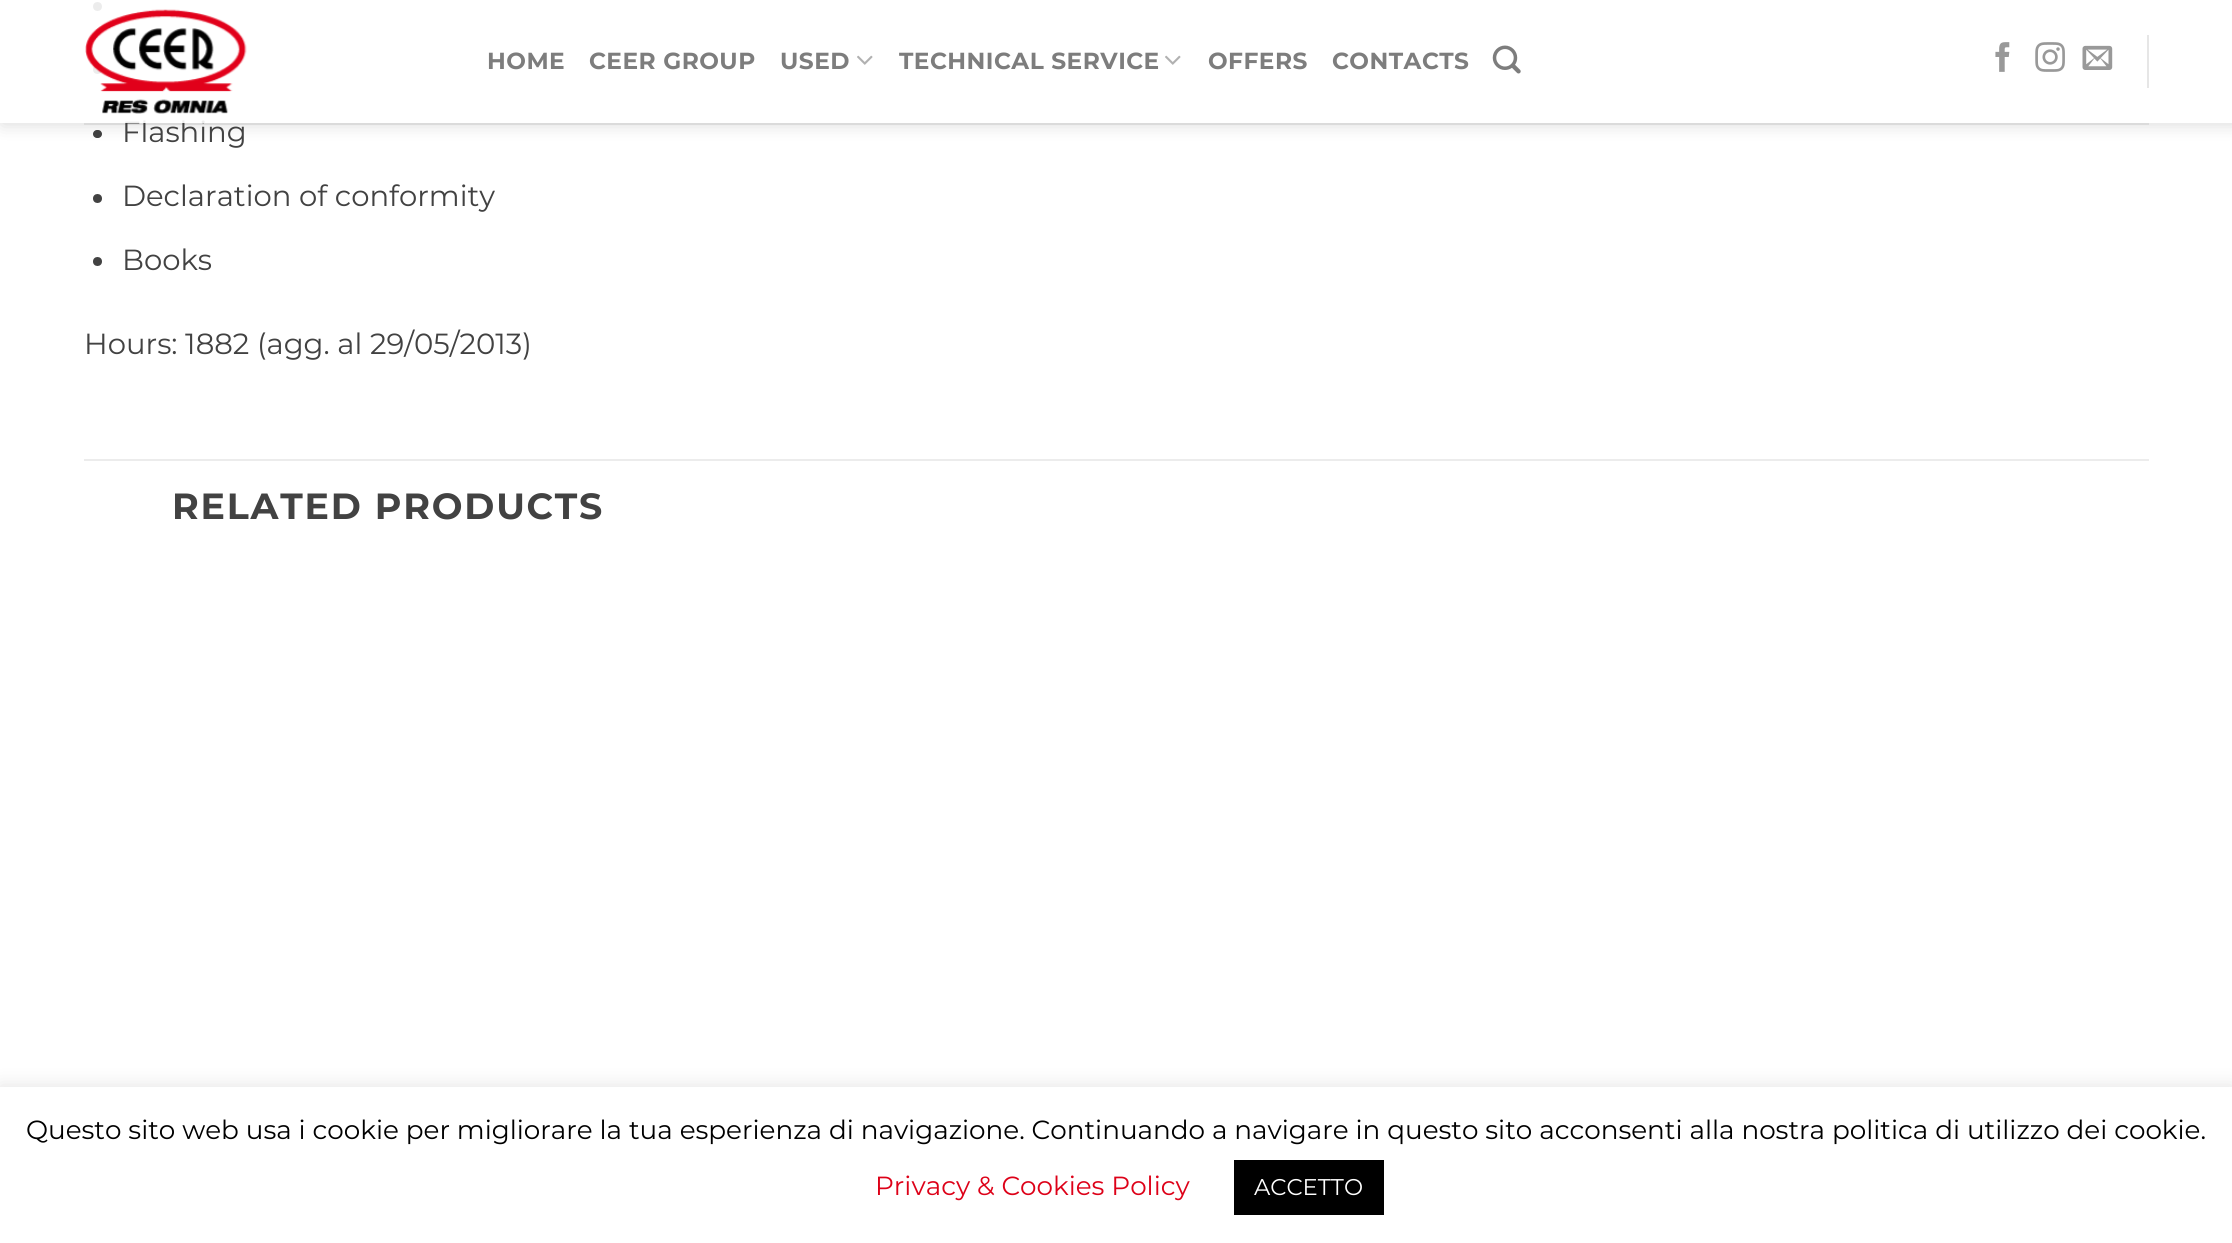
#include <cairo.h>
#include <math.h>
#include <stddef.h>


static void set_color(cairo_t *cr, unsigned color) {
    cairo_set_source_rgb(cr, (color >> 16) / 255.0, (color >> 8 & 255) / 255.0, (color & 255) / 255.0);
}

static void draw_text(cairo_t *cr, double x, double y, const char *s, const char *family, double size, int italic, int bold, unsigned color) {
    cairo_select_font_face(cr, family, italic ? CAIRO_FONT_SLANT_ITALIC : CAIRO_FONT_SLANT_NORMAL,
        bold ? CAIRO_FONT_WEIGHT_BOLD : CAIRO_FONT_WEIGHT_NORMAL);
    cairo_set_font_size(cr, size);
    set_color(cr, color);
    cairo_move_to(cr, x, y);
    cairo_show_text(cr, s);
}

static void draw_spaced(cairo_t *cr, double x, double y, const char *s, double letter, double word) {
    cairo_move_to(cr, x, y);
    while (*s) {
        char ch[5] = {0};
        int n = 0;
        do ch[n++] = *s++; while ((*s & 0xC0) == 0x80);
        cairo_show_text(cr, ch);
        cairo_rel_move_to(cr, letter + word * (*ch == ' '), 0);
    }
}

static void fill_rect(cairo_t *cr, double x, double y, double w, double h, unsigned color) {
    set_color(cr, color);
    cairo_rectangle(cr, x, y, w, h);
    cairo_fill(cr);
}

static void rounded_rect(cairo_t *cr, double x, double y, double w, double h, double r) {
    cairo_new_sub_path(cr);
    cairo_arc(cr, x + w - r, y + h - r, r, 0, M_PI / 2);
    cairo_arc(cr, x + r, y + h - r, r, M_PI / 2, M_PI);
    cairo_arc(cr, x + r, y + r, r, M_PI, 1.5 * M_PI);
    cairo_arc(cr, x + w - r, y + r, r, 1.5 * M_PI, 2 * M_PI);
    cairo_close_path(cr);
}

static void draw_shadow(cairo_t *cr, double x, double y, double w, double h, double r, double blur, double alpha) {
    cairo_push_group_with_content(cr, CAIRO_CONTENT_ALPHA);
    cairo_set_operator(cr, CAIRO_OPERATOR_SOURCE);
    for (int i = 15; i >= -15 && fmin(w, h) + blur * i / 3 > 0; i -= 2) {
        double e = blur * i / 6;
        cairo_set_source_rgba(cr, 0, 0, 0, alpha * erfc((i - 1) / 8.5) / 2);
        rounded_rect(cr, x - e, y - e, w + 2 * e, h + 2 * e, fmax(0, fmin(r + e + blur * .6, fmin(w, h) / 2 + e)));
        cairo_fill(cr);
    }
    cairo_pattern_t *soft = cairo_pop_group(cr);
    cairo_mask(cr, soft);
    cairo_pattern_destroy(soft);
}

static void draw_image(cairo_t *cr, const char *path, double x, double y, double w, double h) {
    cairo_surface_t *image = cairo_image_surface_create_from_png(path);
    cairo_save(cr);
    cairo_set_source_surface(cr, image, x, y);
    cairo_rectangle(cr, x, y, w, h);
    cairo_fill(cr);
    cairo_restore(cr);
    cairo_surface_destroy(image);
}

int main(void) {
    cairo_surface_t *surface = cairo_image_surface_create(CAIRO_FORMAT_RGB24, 2232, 1243);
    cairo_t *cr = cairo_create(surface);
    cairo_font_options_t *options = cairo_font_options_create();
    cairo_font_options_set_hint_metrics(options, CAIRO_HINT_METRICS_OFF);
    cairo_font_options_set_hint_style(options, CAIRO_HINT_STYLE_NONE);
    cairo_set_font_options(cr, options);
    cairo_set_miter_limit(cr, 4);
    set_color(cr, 0xFFFFFF);
    cairo_paint(cr);
    set_color(cr, 0x424242);
    cairo_arc(cr, 97.5, 6.5, 4.5, 0, 2 * M_PI);
    cairo_fill(cr);
    cairo_arc(cr, 97.5, 69.5, 4.5, 0, 2 * M_PI);
    cairo_fill(cr);
    rounded_rect(cr, 93, 130, 9, 8, 4);
    cairo_fill(cr);
    cairo_save(cr);
    cairo_set_fill_rule(cr, CAIRO_FILL_RULE_EVEN_ODD);
    cairo_new_path(cr);
    cairo_move_to(cr, 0, 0);
    cairo_line_to(cr, 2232, 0);
    cairo_line_to(cr, 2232, 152);
    cairo_line_to(cr, 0, 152);
    cairo_close_path(cr);
    cairo_move_to(cr, 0, 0);
    cairo_line_to(cr, 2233, 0);
    cairo_line_to(cr, 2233, 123);
    cairo_line_to(cr, 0, 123);
    cairo_close_path(cr);
    cairo_clip(cr);
    set_color(cr, 0x000000);
    draw_shadow(cr, 2, 2, 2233, 122, 0, 9, 0.15);
    cairo_restore(cr);
    draw_text(cr, 122, 142, "Flashing", "Montserrat", 29.1, 0, 0, 0x424242);
    cairo_set_source_rgba(cr, 1, 1, 1, 0.9);
    cairo_rectangle(cr, 0, 2, 2232, 121);
    cairo_fill(cr);
    draw_image(cr, "assets/img1.png", 85, 9, 162, 105);
    cairo_select_font_face(cr, "Montserrat", CAIRO_FONT_SLANT_NORMAL, CAIRO_FONT_WEIGHT_BOLD);
    cairo_set_font_size(cr, 23.25);
    set_color(cr, 0x7D7D7D);
    draw_spaced(cr, 487, 69, "HOME", 0.5, 0);
    draw_spaced(cr, 589, 69, "CEER GROUP", 0.5, 0);
    draw_spaced(cr, 780, 69, "USED", 0.5, 0);
    draw_image(cr, "assets/img2.png", 857, 55, 16, 10);
    draw_spaced(cr, 899, 69, "TECHNICAL SERVICE", 0.5, 0);
    draw_image(cr, "assets/img2.png", 1165, 55, 16, 10);
    draw_spaced(cr, 1208, 69, "OFFERS", 0.5, 0);
    draw_spaced(cr, 1332, 69, "CONTACTS", 0.5, 0);
    draw_image(cr, "assets/img3.png", 1492, 45, 29, 29);
    draw_image(cr, "assets/img4.png", 1995, 42, 15, 30);
    draw_image(cr, "assets/img5.png", 2035, 42, 30, 30);
    draw_image(cr, "assets/img6.png", 2082, 45, 31, 25);
    fill_rect(cr, 2147, 35, 2, 53, 0xE6E6E6);
    cairo_set_source_rgba(cr, 0.259, 0.259, 0.259, 0.1);
    cairo_rectangle(cr, 84, 123, 2065, 2);
    cairo_fill(cr);
    set_color(cr, 0x424242);
    cairo_arc(cr, 97.5, 198.5, 4.5, 0, 2 * M_PI);
    cairo_fill(cr);
    draw_text(cr, 122, 206, "Declaration of conformity", "Montserrat", 29.1, 0, 0, 0x424242);
    cairo_new_path(cr);
    cairo_arc(cr, 97.5, 261.5, 4.5, 0, 2 * M_PI);
    cairo_fill(cr);
    draw_text(cr, 122, 270, "Books", "Montserrat", 29.1, 0, 0, 0x424242);
    draw_text(cr, 84, 354, "Hours: 1882 (agg. al 29/05/2013)", "Montserrat", 29.1, 0, 0, 0x424242);
    fill_rect(cr, 84, 459, 2065, 2, 0xECECEC);
    cairo_select_font_face(cr, "Montserrat", CAIRO_FONT_SLANT_NORMAL, CAIRO_FONT_WEIGHT_BOLD);
    cairo_set_font_size(cr, 36.4);
    set_color(cr, 0x424242);
    draw_spaced(cr, 172, 519, "RELATED PRODUCTS", 1.8, 0);
    set_color(cr, 0xACABAB);
    draw_shadow(cr, 0, 1085, 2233, 158, 0, 9, 0.3);
    fill_rect(cr, 0, 1087, 2232, 156, 0xFFFFFF);
    draw_text(cr, 26, 1139, "Questo sito web usa i cookie per migliorare la tua esperienza di navigazione. Continuando a navigare in questo sito acconsenti alla nostra politica di utilizzo dei cookie.", "Montserrat", 26.25, 0, 0, 0x000000);
    draw_text(cr, 875, 1195, "Privacy & Cookies Policy", "Montserrat", 26.25, 0, 0, 0xDD0118);
    fill_rect(cr, 1234, 1160, 150, 55, 0x000000);
    draw_text(cr, 1254, 1195, "ACCETTO", "Montserrat", 22.75, 0, 0, 0xFFFFFF);
    cairo_surface_write_to_png(surface, "output.png");
    cairo_font_options_destroy(options);
    cairo_destroy(cr);
    cairo_surface_destroy(surface);
    return 0;
}
